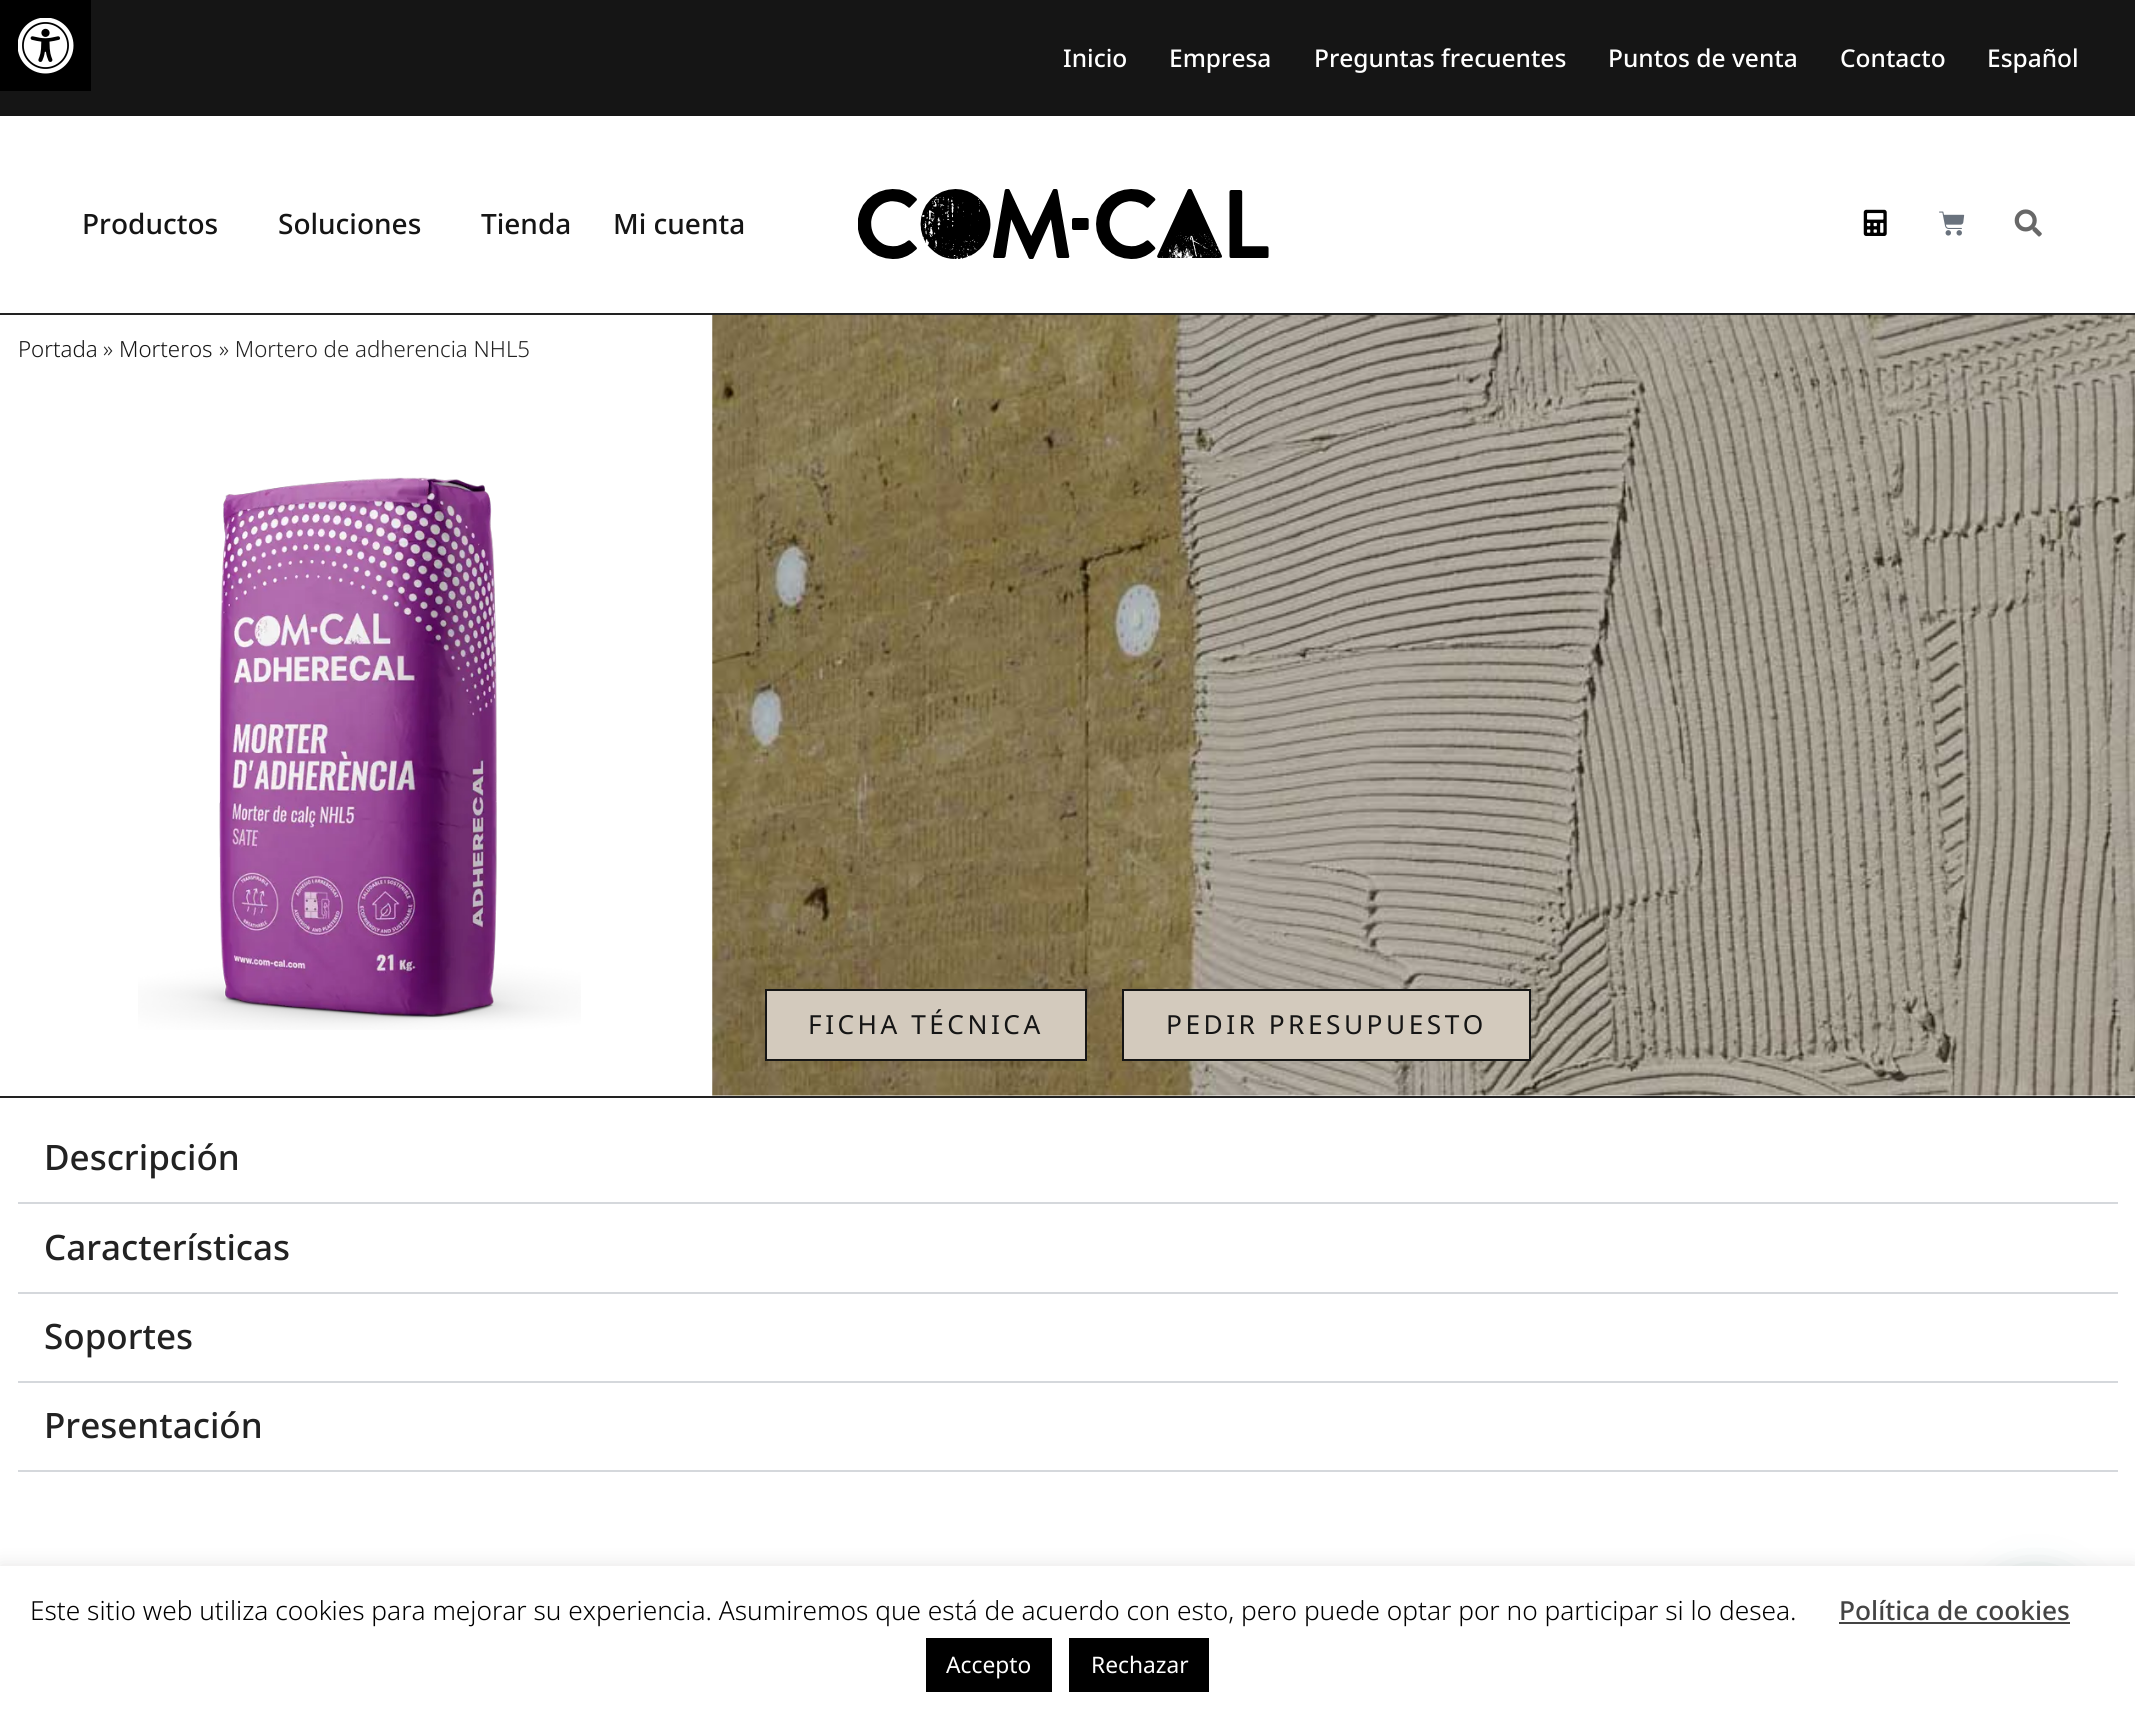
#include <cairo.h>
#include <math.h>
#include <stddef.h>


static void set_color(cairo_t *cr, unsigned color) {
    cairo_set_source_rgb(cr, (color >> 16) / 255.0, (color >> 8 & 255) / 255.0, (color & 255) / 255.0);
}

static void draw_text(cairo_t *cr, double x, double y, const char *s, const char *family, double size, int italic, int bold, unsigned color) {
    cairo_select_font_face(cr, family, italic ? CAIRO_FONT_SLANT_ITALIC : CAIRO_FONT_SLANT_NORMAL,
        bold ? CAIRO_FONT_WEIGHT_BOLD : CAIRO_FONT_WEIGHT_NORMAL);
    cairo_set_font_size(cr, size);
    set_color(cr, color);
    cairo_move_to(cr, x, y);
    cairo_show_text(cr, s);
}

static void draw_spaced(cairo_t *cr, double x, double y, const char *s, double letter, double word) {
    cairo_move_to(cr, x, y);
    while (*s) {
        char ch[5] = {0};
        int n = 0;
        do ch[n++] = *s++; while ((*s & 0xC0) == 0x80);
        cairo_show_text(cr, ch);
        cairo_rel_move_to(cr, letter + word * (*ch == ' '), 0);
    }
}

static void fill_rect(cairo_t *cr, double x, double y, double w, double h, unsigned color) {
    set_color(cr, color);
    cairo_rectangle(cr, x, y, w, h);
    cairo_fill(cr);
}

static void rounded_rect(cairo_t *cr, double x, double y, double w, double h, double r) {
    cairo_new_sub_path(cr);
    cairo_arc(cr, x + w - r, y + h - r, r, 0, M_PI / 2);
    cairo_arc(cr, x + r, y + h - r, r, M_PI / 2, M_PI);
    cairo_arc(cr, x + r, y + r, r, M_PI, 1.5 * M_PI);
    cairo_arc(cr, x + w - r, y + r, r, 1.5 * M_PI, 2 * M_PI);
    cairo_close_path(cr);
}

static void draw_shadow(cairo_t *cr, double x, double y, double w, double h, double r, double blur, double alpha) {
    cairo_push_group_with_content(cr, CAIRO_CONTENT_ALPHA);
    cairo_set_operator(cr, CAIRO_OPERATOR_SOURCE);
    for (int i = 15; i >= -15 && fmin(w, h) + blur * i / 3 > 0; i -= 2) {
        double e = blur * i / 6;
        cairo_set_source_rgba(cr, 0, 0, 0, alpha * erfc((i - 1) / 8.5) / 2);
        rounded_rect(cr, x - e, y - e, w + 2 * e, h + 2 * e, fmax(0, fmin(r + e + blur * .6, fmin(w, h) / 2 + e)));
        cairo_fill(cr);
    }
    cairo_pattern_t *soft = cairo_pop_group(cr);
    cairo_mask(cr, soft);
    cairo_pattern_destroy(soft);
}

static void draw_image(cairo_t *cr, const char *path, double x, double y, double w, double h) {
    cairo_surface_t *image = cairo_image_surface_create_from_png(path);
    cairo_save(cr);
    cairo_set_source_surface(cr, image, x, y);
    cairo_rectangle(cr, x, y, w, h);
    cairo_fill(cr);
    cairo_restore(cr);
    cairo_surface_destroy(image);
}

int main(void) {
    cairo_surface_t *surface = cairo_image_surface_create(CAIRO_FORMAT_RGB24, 2135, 1722);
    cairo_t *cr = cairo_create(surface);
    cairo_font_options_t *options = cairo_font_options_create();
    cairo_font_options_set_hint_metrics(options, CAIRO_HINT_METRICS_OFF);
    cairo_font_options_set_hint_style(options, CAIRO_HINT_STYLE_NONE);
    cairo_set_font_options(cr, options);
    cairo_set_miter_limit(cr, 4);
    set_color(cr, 0xFFFFFF);
    cairo_paint(cr);
    fill_rect(cr, 0, 0, 2135, 116, 0x151515);
    fill_rect(cr, 0, 0, 91, 91, 0x000000);
    draw_image(cr, "assets/img1.png", 18, 18, 56, 56);
    draw_text(cr, 1063, 67, "Inicio", "Noto Sans Medium", 24.5, 0, 0, 0xFFFFFF);
    draw_text(cr, 1169, 67, "Empresa", "Noto Sans Medium", 24.5, 0, 0, 0xFFFFFF);
    draw_text(cr, 1314, 67, "Preguntas frecuentes", "Noto Sans Medium", 24.5, 0, 0, 0xFFFFFF);
    draw_text(cr, 1608, 67, "Puntos de venta", "Noto Sans Medium", 24.5, 0, 0, 0xFFFFFF);
    draw_text(cr, 1840, 67, "Contacto", "Noto Sans Medium", 24.5, 0, 0, 0xFFFFFF);
    draw_text(cr, 1987, 67, "Español", "Noto Sans Medium", 24.5, 0, 0, 0xFFFFFF);
    draw_text(cr, 82, 234, "Productos", "Noto Sans Medium", 28, 0, 0, 0x151515);
    draw_text(cr, 278, 234, "Soluciones", "Noto Sans Medium", 28, 0, 0, 0x151515);
    draw_text(cr, 481, 234, "Tienda", "Noto Sans Medium", 28, 0, 0, 0x151515);
    draw_text(cr, 613, 234, "Mi cuenta", "Noto Sans Medium", 28, 0, 0, 0x151515);
    draw_image(cr, "assets/img2.png", 858, 189, 411, 70);
    draw_image(cr, "assets/img3.png", 1863, 209, 24, 27);
    draw_image(cr, "assets/img4.png", 1939, 211, 26, 25);
    draw_image(cr, "assets/img5.png", 2014, 209, 28, 28);
    fill_rect(cr, 0, 313, 2135, 2, 0x222222);
    fill_rect(cr, 0, 1096, 2135, 2, 0x222222);
    draw_text(cr, 18, 357, "Portada", "Noto Sans Light", 22.25, 0, 0, 0x151515);
    draw_text(cr, 103, 357, "»", "Noto Sans Light", 22.25, 0, 0, 0x222222);
    draw_text(cr, 119, 357, "Morteros", "Noto Sans Light", 22.25, 0, 0, 0x151515);
    draw_text(cr, 219, 357, "» Mortero de adherencia NHL5", "Noto Sans Light", 22.25, 0, 0, 0x222222);
    draw_image(cr, "assets/img6.png", 138, 477, 443, 553);
    draw_image(cr, "assets/img7.png", 712, 315, 1423, 781);
    set_color(cr, 0xD3CABD);
    cairo_rectangle(cr, 766, 990, 320, 70);
    cairo_fill_preserve(cr);
    set_color(cr, 0x151515);
    cairo_stroke(cr);
    cairo_select_font_face(cr, "Noto Sans", CAIRO_FONT_SLANT_NORMAL, CAIRO_FONT_WEIGHT_NORMAL);
    cairo_set_font_size(cr, 26.25);
    draw_spaced(cr, 808, 1034, "FICHA TÉCNICA", 3.5, 0);
    set_color(cr, 0xD3CABD);
    cairo_rectangle(cr, 1123, 990, 407, 70);
    cairo_fill_preserve(cr);
    set_color(cr, 0x151515);
    cairo_stroke(cr);
    draw_spaced(cr, 1166, 1034, "PEDIR PRESUPUESTO", 3.5, 0);
    fill_rect(cr, 18, 1202, 2100, 2, 0xD5D8DC);
    draw_text(cr, 44, 1170, "Descripción", "Noto Sans Medium", 35, 0, 0, 0x222222);
    fill_rect(cr, 18, 1292, 2100, 2, 0xD5D8DC);
    draw_text(cr, 44, 1260, "Características", "Noto Sans Medium", 35, 0, 0, 0x222222);
    fill_rect(cr, 18, 1381, 2100, 2, 0xD5D8DC);
    draw_text(cr, 44, 1349, "Soportes", "Noto Sans Medium", 35, 0, 0, 0x222222);
    fill_rect(cr, 18, 1470, 2100, 2, 0xD5D8DC);
    draw_text(cr, 44, 1438, "Presentación", "Noto Sans Medium", 35, 0, 0, 0x222222);
    set_color(cr, 0x075E54);
    draw_shadow(cr, 1983, 1579, 105, 105, 52.5, 21, 0.24);
    set_color(cr, 0xACABAB);
    draw_shadow(cr, 0, 1565, 2135, 155, 0, 9, 0.3);
    fill_rect(cr, 0, 1566, 2135, 156, 0xFFFFFF);
    draw_text(cr, 30, 1620, "Este sitio web utiliza cookies para mejorar su experiencia. Asumiremos que está de acuerdo con esto, pero puede optar por no participar si lo desea.", "Noto Sans Light", 26.25, 0, 0, 0x000000);
    draw_text(cr, 1839, 1620, "Política de cookies", "Noto Sans Medium", 26.25, 0, 0, 0x444444);
    fill_rect(cr, 1839, 1622, 231, 2, 0x444444);
    fill_rect(cr, 926, 1638, 126, 54, 0x000000);
    draw_text(cr, 946, 1673, "Accepto", "Noto Sans", 22.75, 0, 0, 0xFFFFFF);
    fill_rect(cr, 1069, 1638, 140, 54, 0x000000);
    draw_text(cr, 1091, 1673, "Rechazar", "Noto Sans", 22.75, 0, 0, 0xFFFFFF);
    cairo_surface_write_to_png(surface, "output.png");
    cairo_font_options_destroy(options);
    cairo_destroy(cr);
    cairo_surface_destroy(surface);
    return 0;
}
